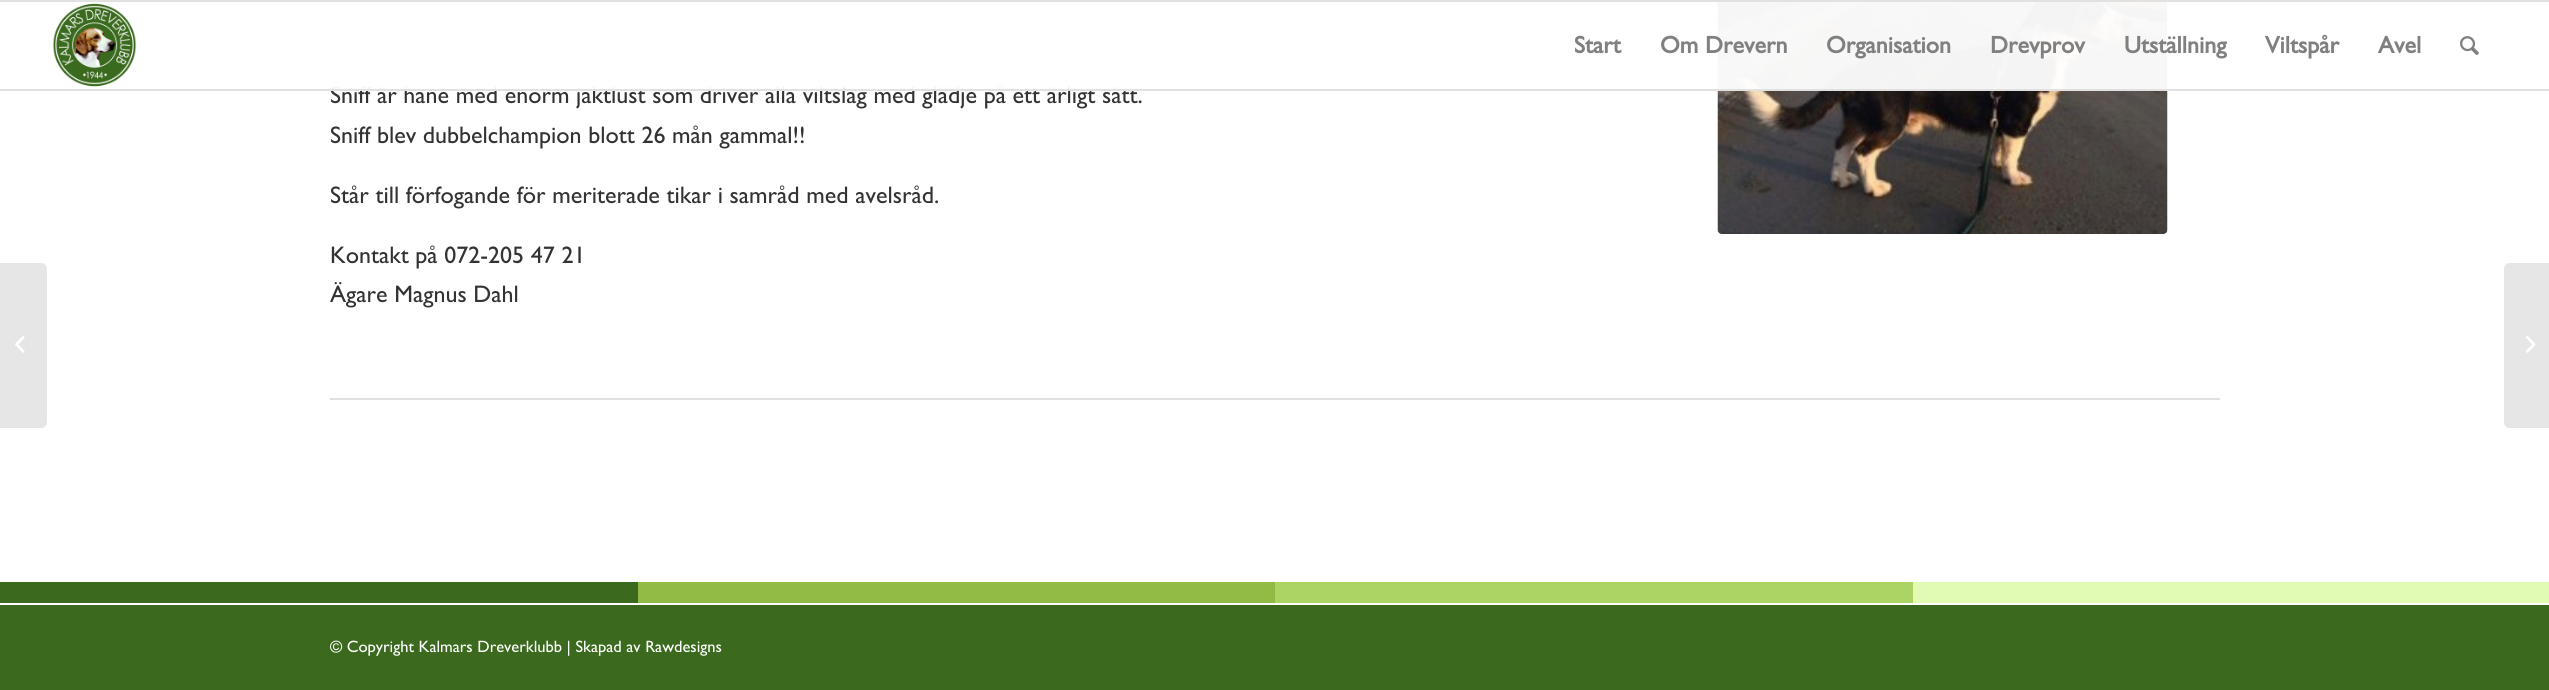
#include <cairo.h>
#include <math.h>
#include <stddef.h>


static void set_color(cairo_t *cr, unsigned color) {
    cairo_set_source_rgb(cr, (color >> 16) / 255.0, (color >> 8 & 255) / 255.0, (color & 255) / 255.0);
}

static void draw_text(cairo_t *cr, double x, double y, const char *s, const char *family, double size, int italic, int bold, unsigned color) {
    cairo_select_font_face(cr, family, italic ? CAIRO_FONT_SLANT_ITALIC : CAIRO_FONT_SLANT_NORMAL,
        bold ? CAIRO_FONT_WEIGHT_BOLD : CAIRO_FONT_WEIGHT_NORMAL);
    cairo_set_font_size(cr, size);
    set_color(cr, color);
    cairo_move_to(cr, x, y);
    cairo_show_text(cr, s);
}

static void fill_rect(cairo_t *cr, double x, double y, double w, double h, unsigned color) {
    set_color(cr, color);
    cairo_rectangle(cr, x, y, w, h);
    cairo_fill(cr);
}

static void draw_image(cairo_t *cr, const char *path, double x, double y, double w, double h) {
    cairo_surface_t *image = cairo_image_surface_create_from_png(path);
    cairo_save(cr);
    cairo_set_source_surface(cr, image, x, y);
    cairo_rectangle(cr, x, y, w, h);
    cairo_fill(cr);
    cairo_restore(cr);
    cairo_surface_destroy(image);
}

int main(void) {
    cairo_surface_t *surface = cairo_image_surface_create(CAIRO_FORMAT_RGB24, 2549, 690);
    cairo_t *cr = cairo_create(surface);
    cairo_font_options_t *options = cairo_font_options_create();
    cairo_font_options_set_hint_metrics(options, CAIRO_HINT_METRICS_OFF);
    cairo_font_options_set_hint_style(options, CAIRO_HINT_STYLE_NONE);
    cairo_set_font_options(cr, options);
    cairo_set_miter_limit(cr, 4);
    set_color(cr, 0xFFFFFF);
    cairo_paint(cr);
    draw_text(cr, 330, 103, "Sniff är hane med enorm jaktlust som driver alla viltslag med glädje på ett ärligt sätt.", "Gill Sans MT", 24, 0, 0, 0x333333);
    draw_image(cr, "assets/img4.png", 1717, 2, 451, 232);
    cairo_set_source_rgba(cr, 1, 1, 1, 0.95);
    cairo_rectangle(cr, 331, 2, 1837, 87);
    cairo_fill(cr);
    fill_rect(cr, 0, 0, 2549, 2, 0xE1E1E1);
    fill_rect(cr, 0, 89, 2549, 2, 0xE1E1E1);
    draw_image(cr, "assets/img1.png", 52, 3, 85, 84);
    draw_text(cr, 1574, 53, "Start", "Gill Sans MT", 24, 0, 1, 0x808080);
    draw_text(cr, 1660, 53, "Om Drevern", "Gill Sans MT", 24, 0, 1, 0x808080);
    draw_text(cr, 1826, 53, "Organisation", "Gill Sans MT", 24, 0, 1, 0x808080);
    draw_text(cr, 1990, 53, "Drevprov", "Gill Sans MT", 24, 0, 1, 0x808080);
    draw_text(cr, 2124, 53, "Utställning", "Gill Sans MT", 24, 0, 1, 0x808080);
    draw_text(cr, 2265, 53, "Viltspår", "Gill Sans MT", 24, 0, 1, 0x808080);
    draw_text(cr, 2378, 53, "Avel", "Gill Sans MT", 24, 0, 1, 0x808080);
    draw_image(cr, "assets/img2.png", 2460, 36, 19, 20);
    set_color(cr, 0xE6E6E6);
    cairo_new_path(cr);
    cairo_move_to(cr, 0, 263);
    cairo_line_to(cr, 41, 263);
    cairo_curve_to(cr, 44.5, 263, 47, 265.5, 47, 269);
    cairo_line_to(cr, 47, 422);
    cairo_curve_to(cr, 47, 425.5, 44.5, 428, 41, 428);
    cairo_line_to(cr, 0, 428);
    cairo_close_path(cr);
    cairo_fill(cr);
    draw_image(cr, "assets/img3.png", 15, 336, 10, 17);
    draw_text(cr, 330, 143, "Sniff blev dubbelchampion blott 26 mån gammal!!", "Gill Sans MT", 24, 0, 0, 0x333333);
    draw_text(cr, 330, 203, "Står till förfogande för meriterade tikar i samråd med avelsråd.", "Gill Sans MT", 24, 0, 0, 0x333333);
    draw_text(cr, 330, 263, "Kontakt på 072-205 47 21", "Gill Sans MT", 24, 0, 0, 0x333333);
    draw_text(cr, 330, 302, "Ägare Magnus Dahl", "Gill Sans MT", 24, 0, 0, 0x333333);
    fill_rect(cr, 330, 398, 1890, 2, 0xE1E1E1);
    fill_rect(cr, 0, 582, 638, 21, 0x3B6A1E);
    fill_rect(cr, 638, 582, 637, 21, 0x92BB46);
    fill_rect(cr, 1275, 582, 638, 21, 0xACD464);
    fill_rect(cr, 1913, 582, 636, 21, 0xE1FBB2);
    fill_rect(cr, 0, 605, 2549, 85, 0x3B6A1E);
    draw_text(cr, 330, 652, "© Copyright Kalmars Dreverklubb | Skapad av Rawdesigns", "Gill Sans MT", 16.5, 0, 0, 0xFFFFFF);
    set_color(cr, 0xE6E6E6);
    cairo_new_path(cr);
    cairo_move_to(cr, 2510, 263);
    cairo_line_to(cr, 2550, 263);
    cairo_line_to(cr, 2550, 428);
    cairo_line_to(cr, 2510, 428);
    cairo_curve_to(cr, 2506.5, 428, 2504, 425.5, 2504, 422);
    cairo_line_to(cr, 2504, 269);
    cairo_curve_to(cr, 2504, 265.5, 2506.5, 263, 2510, 263);
    cairo_close_path(cr);
    cairo_fill(cr);
    draw_image(cr, "assets/img5.png", 2526, 336, 10, 17);
    cairo_surface_write_to_png(surface, "output.png");
    cairo_font_options_destroy(options);
    cairo_destroy(cr);
    cairo_surface_destroy(surface);
    return 0;
}
